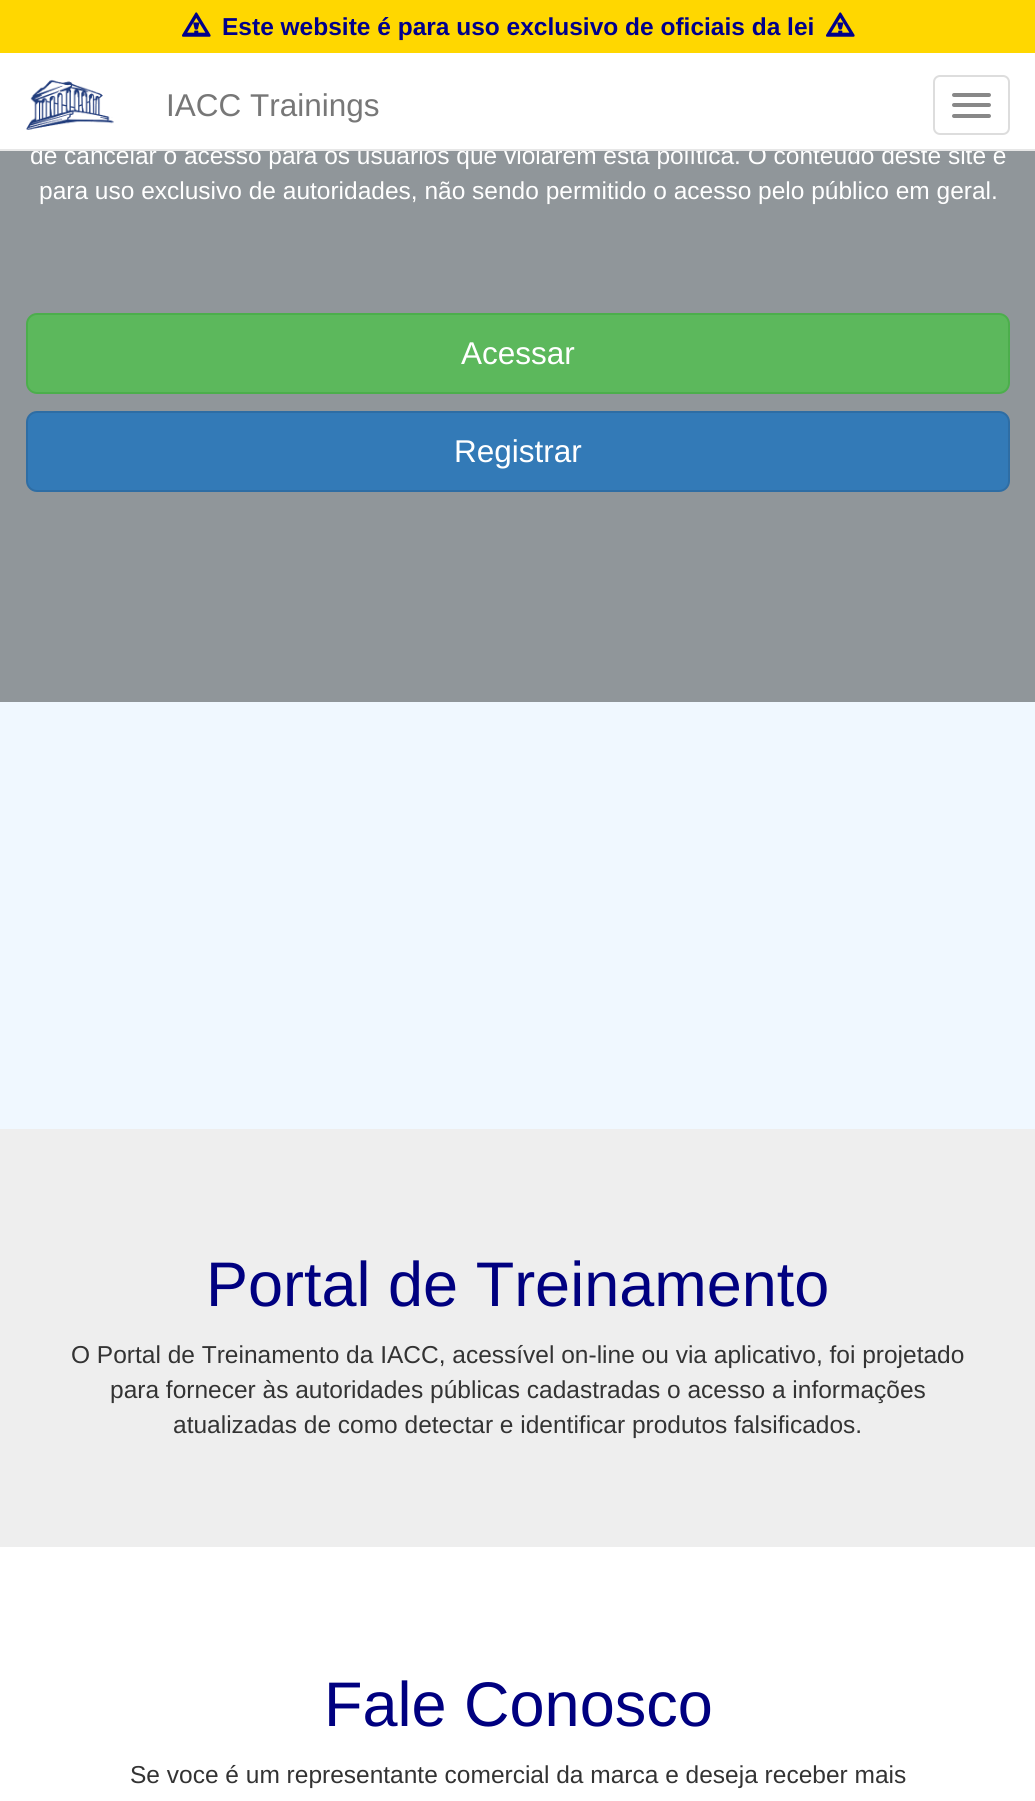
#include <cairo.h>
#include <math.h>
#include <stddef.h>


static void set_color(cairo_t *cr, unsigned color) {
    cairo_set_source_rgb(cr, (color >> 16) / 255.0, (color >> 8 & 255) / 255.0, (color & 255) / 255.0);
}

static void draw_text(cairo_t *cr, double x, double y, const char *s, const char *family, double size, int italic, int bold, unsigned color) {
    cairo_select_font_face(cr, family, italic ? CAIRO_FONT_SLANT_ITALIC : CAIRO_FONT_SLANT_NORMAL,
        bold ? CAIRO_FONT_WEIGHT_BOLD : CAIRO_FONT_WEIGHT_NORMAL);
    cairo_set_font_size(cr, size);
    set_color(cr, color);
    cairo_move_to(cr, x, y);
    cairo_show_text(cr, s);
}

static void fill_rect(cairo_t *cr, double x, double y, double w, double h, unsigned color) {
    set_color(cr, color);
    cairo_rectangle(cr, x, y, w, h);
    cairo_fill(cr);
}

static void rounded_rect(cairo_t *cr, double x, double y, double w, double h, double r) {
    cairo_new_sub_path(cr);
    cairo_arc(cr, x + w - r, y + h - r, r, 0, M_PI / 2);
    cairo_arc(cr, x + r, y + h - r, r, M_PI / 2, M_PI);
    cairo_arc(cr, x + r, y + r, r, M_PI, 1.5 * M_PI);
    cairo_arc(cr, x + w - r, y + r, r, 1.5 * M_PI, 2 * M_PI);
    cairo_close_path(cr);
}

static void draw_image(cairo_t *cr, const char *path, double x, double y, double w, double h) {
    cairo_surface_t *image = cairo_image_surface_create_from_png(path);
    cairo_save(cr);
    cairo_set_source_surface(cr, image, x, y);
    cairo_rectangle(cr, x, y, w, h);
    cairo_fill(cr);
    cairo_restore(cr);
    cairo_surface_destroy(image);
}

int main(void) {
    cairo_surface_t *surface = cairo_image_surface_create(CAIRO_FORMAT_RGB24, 1035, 1801);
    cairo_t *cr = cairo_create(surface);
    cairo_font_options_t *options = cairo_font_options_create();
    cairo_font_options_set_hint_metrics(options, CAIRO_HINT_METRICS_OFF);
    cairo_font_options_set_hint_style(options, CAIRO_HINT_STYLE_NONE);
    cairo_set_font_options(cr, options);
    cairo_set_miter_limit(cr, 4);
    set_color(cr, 0xFFFFFF);
    cairo_paint(cr);
    fill_rect(cr, 0, 0, 1035, 53, 0xFFD700);
    draw_image(cr, "assets/img1.png", 182, 12, 29, 25);
    draw_text(cr, 222, 35, "Este website é para uso exclusivo de oficiais da lei", "Liberation Sans", 24.5, 0, 1, 0x00008B);
    draw_image(cr, "assets/img1.png", 826, 12, 29, 25);
    fill_rect(cr, 0, 151, 1035, 551, 0x90969A);
    draw_text(cr, 30, 164, "de cancelar o acesso para os usuários que violarem esta política. O conteúdo deste site é", "Liberation Sans", 24.5, 0, 0, 0xFFFFFF);
    fill_rect(cr, 0, 149, 1035, 2, 0xE7E7E7);
    draw_image(cr, "assets/img2.png", 26, 79, 88, 51);
    draw_text(cr, 166, 116, "IACC Trainings", "Liberation Sans", 31.5, 0, 0, 0x777777);
    rounded_rect(cr, 934, 76, 75, 58, 6);
    set_color(cr, 0xDDDDDD);
    cairo_stroke(cr);
    set_color(cr, 0x888888);
    rounded_rect(cr, 952, 93, 39, 4, 2);
    cairo_fill(cr);
    rounded_rect(cr, 952, 103, 39, 4, 2);
    cairo_fill(cr);
    rounded_rect(cr, 952, 114, 39, 4, 2);
    cairo_fill(cr);
    fill_rect(cr, 0, 702, 1035, 427, 0xF0F8FF);
    draw_text(cr, 39, 199, "para uso exclusivo de autoridades, não sendo permitido o acesso pelo público em geral.", "Liberation Sans", 24.5, 0, 0, 0xFFFFFF);
    set_color(cr, 0x5CB85C);
    rounded_rect(cr, 27, 314, 982, 79, 10);
    cairo_fill_preserve(cr);
    set_color(cr, 0x4CAE4C);
    cairo_stroke(cr);
    draw_text(cr, 461, 364, "Acessar", "Liberation Sans", 31.5, 0, 0, 0xFFFFFF);
    set_color(cr, 0x337AB7);
    rounded_rect(cr, 27, 412, 982, 79, 10);
    cairo_fill_preserve(cr);
    set_color(cr, 0x2E6DA4);
    cairo_stroke(cr);
    draw_text(cr, 454, 462, "Registrar", "Liberation Sans", 31.5, 0, 0, 0xFFFFFF);
    fill_rect(cr, 0, 1129, 1035, 418, 0xEEEEEE);
    draw_text(cr, 206, 1306, "Portal de Treinamento", "Liberation Sans", 63, 0, 0, 0x000080);
    draw_text(cr, 71, 1363, "O Portal de Treinamento da IACC, acessível on-line ou via aplicativo, foi projetado", "Liberation Sans", 24.5, 0, 0, 0x333333);
    draw_text(cr, 110, 1398, "para fornecer às autoridades públicas cadastradas o acesso a informações", "Liberation Sans", 24.5, 0, 0, 0x333333);
    draw_text(cr, 173, 1433, "atualizadas de como detectar e identificar produtos falsificados.", "Liberation Sans", 24.5, 0, 0, 0x333333);
    draw_text(cr, 324, 1726, "Fale Conosco", "Liberation Sans", 63, 0, 0, 0x000080);
    draw_text(cr, 130, 1783, "Se voce é um representante comercial da marca e deseja receber mais", "Liberation Sans", 24.5, 0, 0, 0x333333);
    cairo_surface_write_to_png(surface, "output.png");
    cairo_font_options_destroy(options);
    cairo_destroy(cr);
    cairo_surface_destroy(surface);
    return 0;
}
